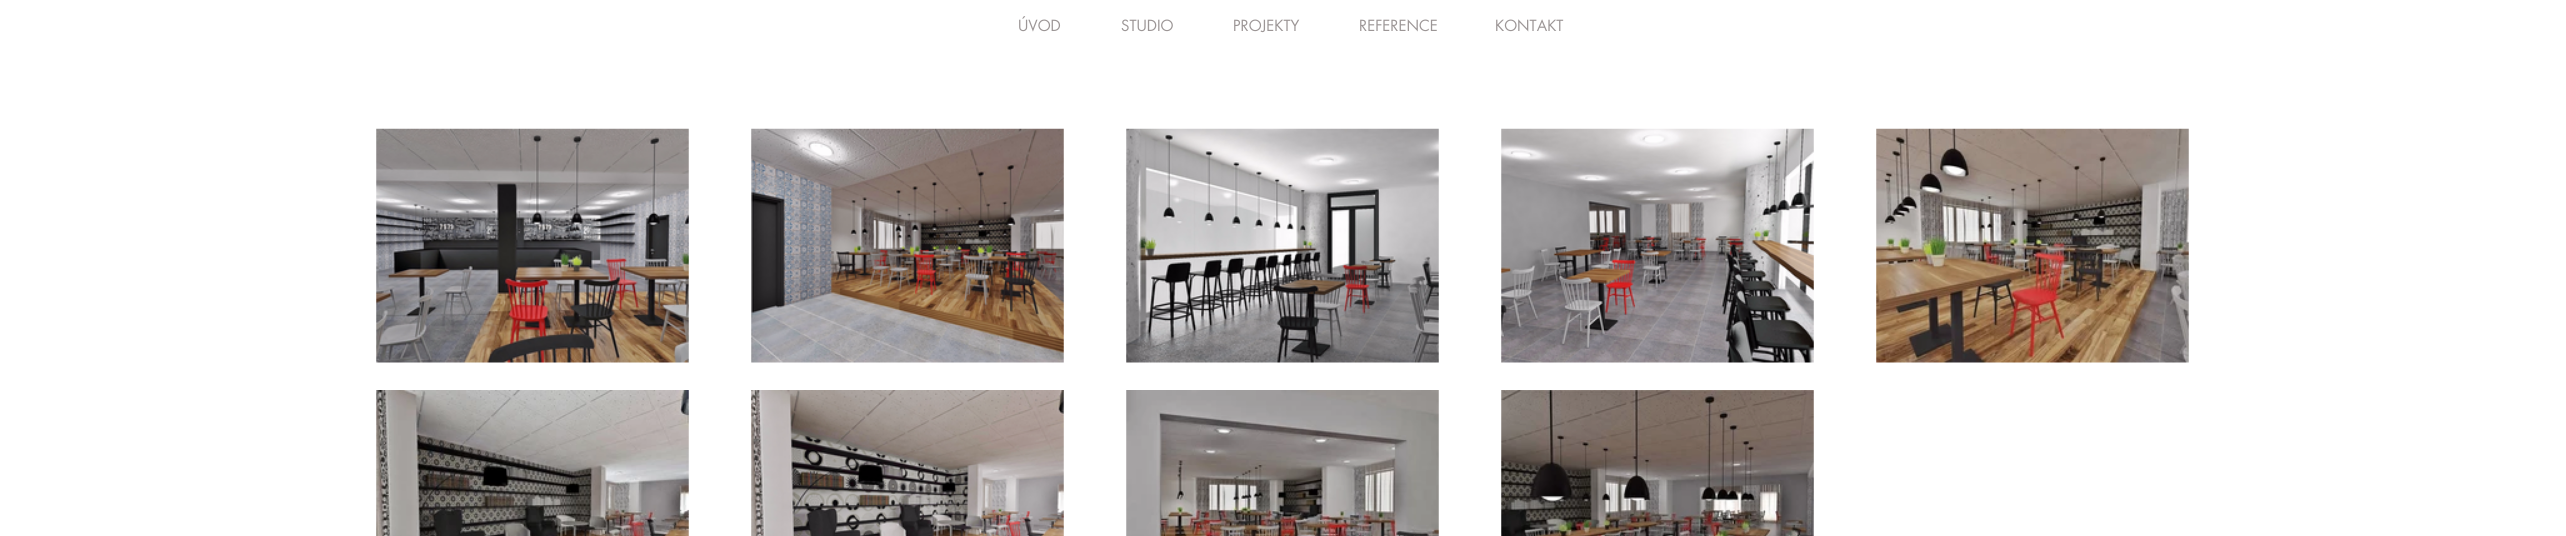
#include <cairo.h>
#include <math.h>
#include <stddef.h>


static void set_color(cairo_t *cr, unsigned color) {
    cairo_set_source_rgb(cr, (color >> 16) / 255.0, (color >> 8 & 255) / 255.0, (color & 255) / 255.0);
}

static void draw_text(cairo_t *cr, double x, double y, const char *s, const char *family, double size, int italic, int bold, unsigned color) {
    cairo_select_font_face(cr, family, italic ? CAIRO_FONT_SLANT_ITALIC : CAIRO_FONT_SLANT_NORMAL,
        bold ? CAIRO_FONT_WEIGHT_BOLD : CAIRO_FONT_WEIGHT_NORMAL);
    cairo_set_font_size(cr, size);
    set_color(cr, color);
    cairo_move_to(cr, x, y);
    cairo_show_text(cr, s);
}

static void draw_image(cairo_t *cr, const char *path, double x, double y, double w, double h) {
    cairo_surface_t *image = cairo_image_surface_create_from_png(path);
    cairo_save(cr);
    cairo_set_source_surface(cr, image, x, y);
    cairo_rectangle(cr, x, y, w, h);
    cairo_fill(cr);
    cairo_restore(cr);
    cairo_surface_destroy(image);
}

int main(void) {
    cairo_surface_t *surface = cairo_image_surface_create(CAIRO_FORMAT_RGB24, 2566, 536);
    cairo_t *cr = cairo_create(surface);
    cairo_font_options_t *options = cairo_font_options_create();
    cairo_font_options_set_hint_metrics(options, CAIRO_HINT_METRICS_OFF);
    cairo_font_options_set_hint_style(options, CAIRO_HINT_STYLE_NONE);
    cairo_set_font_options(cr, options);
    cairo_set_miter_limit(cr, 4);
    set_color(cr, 0xFFFFFF);
    cairo_paint(cr);
    draw_text(cr, 1018, 31, "ÚVOD", "futura", 15, 0, 0, 0x9C9696);
    draw_text(cr, 1121, 31, "STUDIO", "futura", 15, 0, 0, 0x9C9696);
    draw_text(cr, 1233, 31, "PROJEKTY", "futura", 15, 0, 0, 0x9C9696);
    draw_text(cr, 1359, 31, "REFERENCE", "futura", 15, 0, 0, 0x9C9696);
    draw_text(cr, 1495, 31, "KONTAKT", "futura", 15, 0, 0, 0x9C9696);
    draw_image(cr, "assets/img1.png", 376, 128, 313, 235);
    draw_image(cr, "assets/img2.png", 751, 128, 313, 235);
    draw_image(cr, "assets/img3.png", 1126, 128, 313, 235);
    draw_image(cr, "assets/img4.png", 1501, 128, 313, 235);
    draw_image(cr, "assets/img5.png", 1876, 128, 313, 235);
    draw_image(cr, "assets/img6.png", 376, 390, 313, 146);
    draw_image(cr, "assets/img7.png", 751, 390, 313, 146);
    draw_image(cr, "assets/img8.png", 1126, 390, 313, 146);
    draw_image(cr, "assets/img9.png", 1501, 390, 313, 146);
    cairo_surface_write_to_png(surface, "output.png");
    cairo_font_options_destroy(options);
    cairo_destroy(cr);
    cairo_surface_destroy(surface);
    return 0;
}
